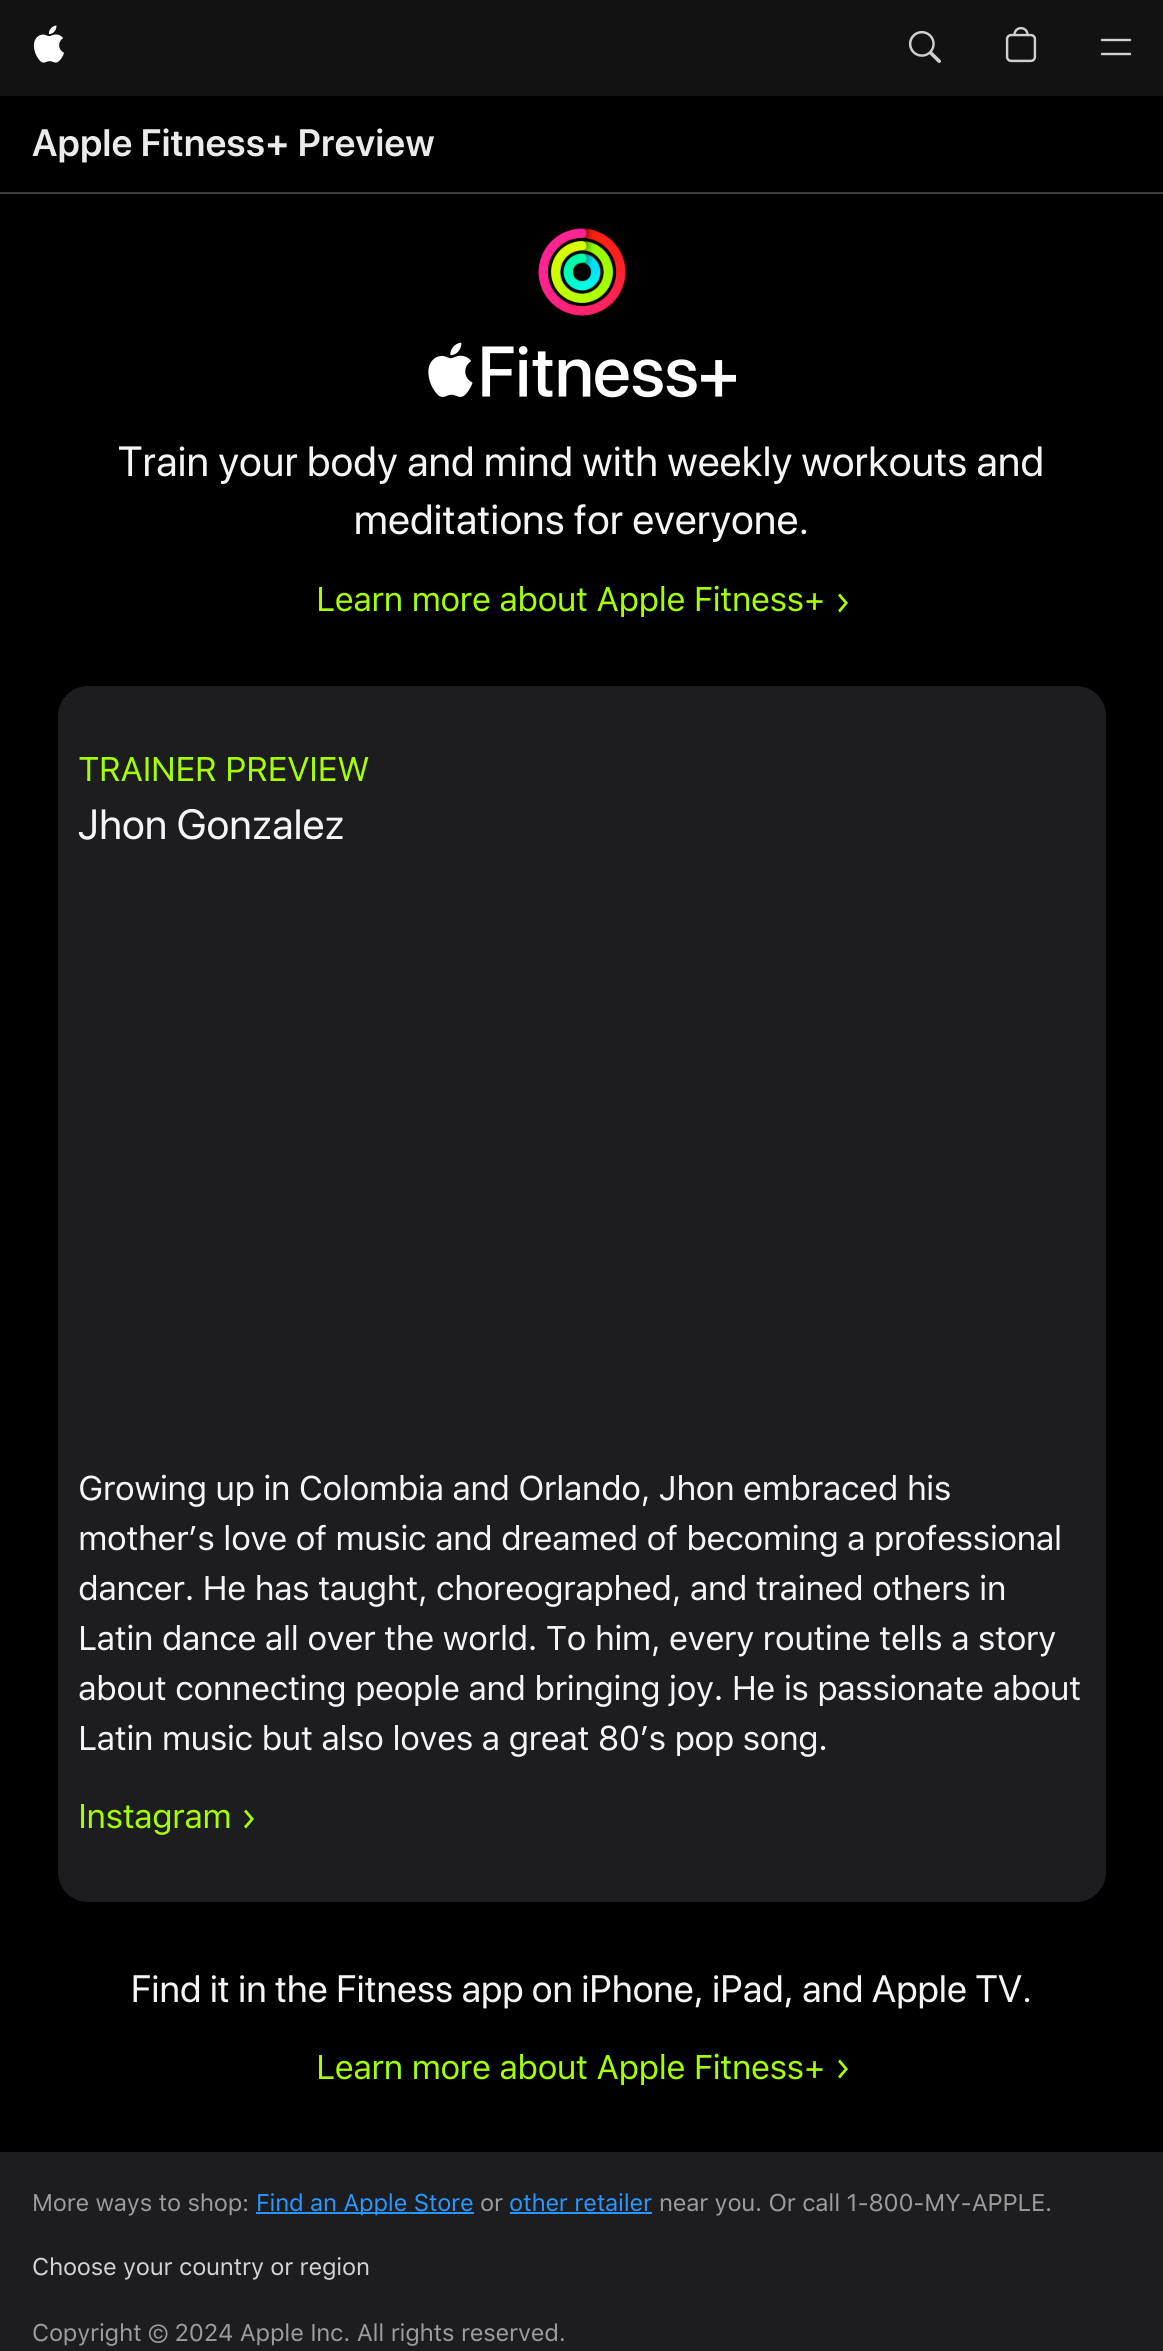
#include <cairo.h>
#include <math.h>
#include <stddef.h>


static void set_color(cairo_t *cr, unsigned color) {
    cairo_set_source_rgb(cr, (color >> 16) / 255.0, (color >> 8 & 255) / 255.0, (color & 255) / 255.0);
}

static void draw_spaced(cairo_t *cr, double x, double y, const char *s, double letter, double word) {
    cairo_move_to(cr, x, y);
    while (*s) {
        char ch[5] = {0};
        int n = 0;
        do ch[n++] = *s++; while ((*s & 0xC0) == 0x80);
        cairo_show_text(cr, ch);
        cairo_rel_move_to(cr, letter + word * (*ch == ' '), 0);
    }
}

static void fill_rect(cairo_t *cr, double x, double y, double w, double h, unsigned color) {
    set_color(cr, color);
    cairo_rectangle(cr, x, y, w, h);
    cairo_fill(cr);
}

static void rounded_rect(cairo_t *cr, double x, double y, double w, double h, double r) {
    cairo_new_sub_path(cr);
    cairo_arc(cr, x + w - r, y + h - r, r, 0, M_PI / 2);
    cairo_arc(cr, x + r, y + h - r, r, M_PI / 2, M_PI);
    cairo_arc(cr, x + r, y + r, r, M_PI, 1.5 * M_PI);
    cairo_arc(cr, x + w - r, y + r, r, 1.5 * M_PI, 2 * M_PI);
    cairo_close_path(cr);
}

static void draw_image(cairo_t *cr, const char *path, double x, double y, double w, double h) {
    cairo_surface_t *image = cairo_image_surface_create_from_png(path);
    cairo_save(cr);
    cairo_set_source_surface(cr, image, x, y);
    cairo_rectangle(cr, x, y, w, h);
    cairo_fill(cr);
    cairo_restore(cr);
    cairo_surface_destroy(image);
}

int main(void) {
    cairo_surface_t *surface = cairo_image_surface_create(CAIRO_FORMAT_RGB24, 1163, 2351);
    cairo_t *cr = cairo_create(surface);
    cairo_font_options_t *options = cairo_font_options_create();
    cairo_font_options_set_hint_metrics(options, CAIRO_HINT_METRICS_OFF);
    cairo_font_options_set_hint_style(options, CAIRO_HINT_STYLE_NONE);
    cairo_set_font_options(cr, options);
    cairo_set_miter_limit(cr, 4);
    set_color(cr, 0x000000);
    cairo_paint(cr);
    fill_rect(cr, 0, 0, 1163, 96, 0x121212);
    draw_image(cr, "assets/img1.png", 33, 25, 31, 38);
    draw_image(cr, "assets/img2.png", 908, 30, 33, 33);
    draw_image(cr, "assets/img3.png", 1005, 26, 32, 37);
    cairo_new_path(cr);
    cairo_move_to(cr, 1102, 54);
    cairo_line_to(cr, 1130, 54);
    cairo_move_to(cr, 1102, 40);
    cairo_line_to(cr, 1130, 40);
    set_color(cr, 0xD0D0D0);
    cairo_set_line_width(cr, 2.4);
    cairo_set_line_cap(cr, CAIRO_LINE_CAP_ROUND);
    cairo_set_line_join(cr, CAIRO_LINE_JOIN_ROUND);
    cairo_stroke(cr);
    cairo_select_font_face(cr, "SF Pro Display SemiBold", CAIRO_FONT_SLANT_NORMAL, CAIRO_FONT_WEIGHT_NORMAL);
    cairo_set_font_size(cr, 38);
    set_color(cr, 0xEBEBEB);
    draw_spaced(cr, 32, 156, "Apple Fitness+ Preview", 0.45, 0);
    fill_rect(cr, 0, 192, 1163, 2, 0x3D3D3D);
    draw_image(cr, "assets/img4.png", 538, 228, 88, 88);
    draw_image(cr, "assets/img5.png", 428, 342, 308, 56);
    cairo_select_font_face(cr, "SF Pro Display", CAIRO_FONT_SLANT_NORMAL, CAIRO_FONT_WEIGHT_NORMAL);
    cairo_set_font_size(cr, 42);
    set_color(cr, 0xF5F5F7);
    draw_spaced(cr, 118, 476, "Train your body and mind with weekly workouts and", 0.45, 0);
    draw_spaced(cr, 354, 534, "meditations for everyone.", 0.45, 0);
    cairo_select_font_face(cr, "SF Pro Text", CAIRO_FONT_SLANT_NORMAL, CAIRO_FONT_WEIGHT_NORMAL);
    cairo_set_font_size(cr, 34);
    set_color(cr, 0xA6FF00);
    draw_spaced(cr, 316, 611, "Learn more about Apple Fitness+", -0.75, 0);
    cairo_new_path(cr);
    cairo_move_to(cr, 838, 610.5);
    cairo_line_to(cr, 840, 612.5);
    cairo_line_to(cr, 848, 603);
    cairo_line_to(cr, 840, 593.5);
    cairo_line_to(cr, 838, 595.5);
    cairo_line_to(cr, 844.5, 603);
    cairo_close_path(cr);
    cairo_fill(cr);
    set_color(cr, 0x1D1D1F);
    rounded_rect(cr, 58, 686, 1048, 1216, 30);
    cairo_fill(cr);
    set_color(cr, 0xA6FF00);
    draw_spaced(cr, 78, 781, "TRAINER PREVIEW", -0.75, 0);
    cairo_select_font_face(cr, "SF Pro Display", CAIRO_FONT_SLANT_NORMAL, CAIRO_FONT_WEIGHT_NORMAL);
    cairo_set_font_size(cr, 42);
    set_color(cr, 0xF5F5F7);
    draw_spaced(cr, 78, 839, "Jhon Gonzalez", 0.45, 0);
    cairo_select_font_face(cr, "SF Pro Text", CAIRO_FONT_SLANT_NORMAL, CAIRO_FONT_WEIGHT_NORMAL);
    cairo_set_font_size(cr, 34);
    draw_spaced(cr, 78, 1500, "Growing up in Colombia and Orlando, Jhon embraced his", -0.75, 0);
    draw_spaced(cr, 78, 1550, "mother’s love of music and dreamed of becoming a professional", -0.75, 0);
    draw_spaced(cr, 78, 1600, "dancer. He has taught, choreographed, and trained others in", -0.75, 0);
    draw_spaced(cr, 78, 1650, "Latin dance all over the world. To him, every routine tells a story", -0.75, 0);
    draw_spaced(cr, 78, 1700, "about connecting people and bringing joy. He is passionate about", -0.75, 0);
    draw_spaced(cr, 78, 1750, "Latin music but also loves a great 80’s pop song.", -0.75, 0);
    set_color(cr, 0xA6FF00);
    draw_spaced(cr, 78, 1828, "Instagram", -0.75, 0);
    cairo_new_path(cr);
    cairo_move_to(cr, 244, 1826.5);
    cairo_line_to(cr, 246, 1828.5);
    cairo_line_to(cr, 254, 1819);
    cairo_line_to(cr, 246, 1809.5);
    cairo_line_to(cr, 244, 1811.5);
    cairo_line_to(cr, 250.5, 1819);
    cairo_close_path(cr);
    cairo_fill(cr);
    cairo_select_font_face(cr, "SF Pro Display", CAIRO_FONT_SLANT_NORMAL, CAIRO_FONT_WEIGHT_NORMAL);
    cairo_set_font_size(cr, 38);
    set_color(cr, 0xF5F5F7);
    draw_spaced(cr, 131, 2002, "Find it in the Fitness app on iPhone, iPad, and Apple TV.", 0.45, 0);
    cairo_select_font_face(cr, "SF Pro Text", CAIRO_FONT_SLANT_NORMAL, CAIRO_FONT_WEIGHT_NORMAL);
    cairo_set_font_size(cr, 34);
    set_color(cr, 0xA6FF00);
    draw_spaced(cr, 316, 2079, "Learn more about Apple Fitness+", -0.75, 0);
    cairo_new_path(cr);
    cairo_move_to(cr, 838, 2076.5);
    cairo_line_to(cr, 840, 2078.5);
    cairo_line_to(cr, 848, 2069);
    cairo_line_to(cr, 840, 2059.5);
    cairo_line_to(cr, 838, 2061.5);
    cairo_line_to(cr, 844.5, 2069);
    cairo_close_path(cr);
    cairo_fill(cr);
    fill_rect(cr, 0, 2152, 1163, 199, 0x1D1D1F);
    cairo_set_font_size(cr, 24);
    set_color(cr, 0x9C9C9C);
    draw_spaced(cr, 32, 2211, "More ways to shop:", -0.25, 0);
    fill_rect(cr, 256, 2212, 218, 2, 0x2997FF);
    draw_spaced(cr, 256, 2211, "Find an Apple Store", -0.25, 0);
    set_color(cr, 0x9C9C9C);
    draw_spaced(cr, 480, 2211, "or", -0.25, 0);
    set_color(cr, 0x2997FF);
    draw_spaced(cr, 509, 2211, "other retailer", -0.25, 0);
    fill_rect(cr, 510, 2212, 142, 2, 0x2997FF);
    set_color(cr, 0x9C9C9C);
    draw_spaced(cr, 659, 2211, "near you. Or call 1-800-MY-APPLE.", -0.25, 0);
    set_color(cr, 0xD2D2D2);
    draw_spaced(cr, 32, 2275, "Choose your country or region", -0.25, 0);
    set_color(cr, 0x9C9C9C);
    draw_spaced(cr, 32, 2341, "Copyright © 2024 Apple Inc. All rights reserved.", -0.25, 0);
    cairo_surface_write_to_png(surface, "output.png");
    cairo_font_options_destroy(options);
    cairo_destroy(cr);
    cairo_surface_destroy(surface);
    return 0;
}
